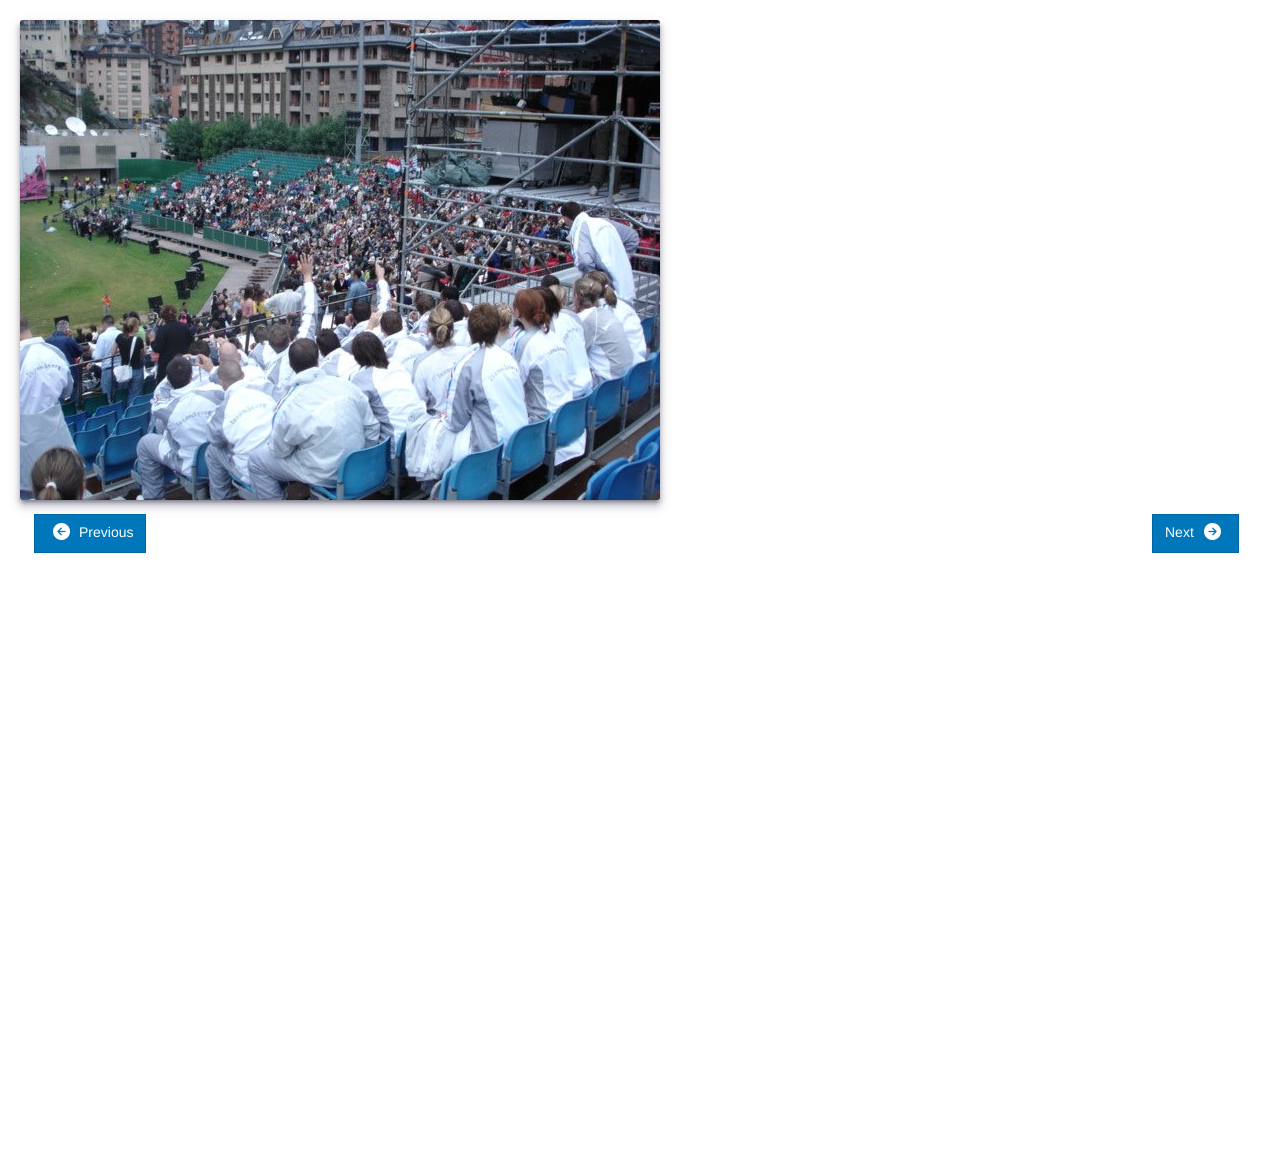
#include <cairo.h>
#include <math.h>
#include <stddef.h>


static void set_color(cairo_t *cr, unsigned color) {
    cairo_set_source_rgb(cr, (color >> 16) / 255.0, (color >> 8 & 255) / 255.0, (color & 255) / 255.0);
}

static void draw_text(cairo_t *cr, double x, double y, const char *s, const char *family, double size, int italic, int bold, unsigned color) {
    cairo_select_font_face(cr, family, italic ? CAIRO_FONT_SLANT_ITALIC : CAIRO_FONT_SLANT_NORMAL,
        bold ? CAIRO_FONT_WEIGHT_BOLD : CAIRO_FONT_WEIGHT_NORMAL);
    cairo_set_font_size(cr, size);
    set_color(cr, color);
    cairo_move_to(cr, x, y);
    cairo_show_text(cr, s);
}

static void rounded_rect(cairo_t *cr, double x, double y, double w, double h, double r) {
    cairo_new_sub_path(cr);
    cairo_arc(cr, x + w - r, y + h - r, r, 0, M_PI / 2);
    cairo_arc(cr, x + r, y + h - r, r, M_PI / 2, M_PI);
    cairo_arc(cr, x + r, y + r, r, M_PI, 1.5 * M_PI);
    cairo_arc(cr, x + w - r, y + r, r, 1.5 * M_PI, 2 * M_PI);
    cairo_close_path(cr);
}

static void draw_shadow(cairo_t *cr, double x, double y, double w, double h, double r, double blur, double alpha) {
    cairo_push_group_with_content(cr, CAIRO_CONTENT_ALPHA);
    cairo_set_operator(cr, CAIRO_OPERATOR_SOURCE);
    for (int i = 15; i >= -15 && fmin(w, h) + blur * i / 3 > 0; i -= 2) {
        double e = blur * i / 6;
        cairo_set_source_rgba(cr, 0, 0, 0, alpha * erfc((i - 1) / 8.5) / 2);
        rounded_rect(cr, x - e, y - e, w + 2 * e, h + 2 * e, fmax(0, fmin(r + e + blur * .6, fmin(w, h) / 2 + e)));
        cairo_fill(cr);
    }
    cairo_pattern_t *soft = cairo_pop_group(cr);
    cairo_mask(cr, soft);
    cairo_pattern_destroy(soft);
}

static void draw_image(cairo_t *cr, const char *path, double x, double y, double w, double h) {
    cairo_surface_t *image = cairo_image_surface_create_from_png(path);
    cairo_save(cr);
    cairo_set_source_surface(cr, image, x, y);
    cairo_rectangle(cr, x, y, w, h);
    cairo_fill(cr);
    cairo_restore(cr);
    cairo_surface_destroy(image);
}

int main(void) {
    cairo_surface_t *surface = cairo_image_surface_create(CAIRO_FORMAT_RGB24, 1273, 1173);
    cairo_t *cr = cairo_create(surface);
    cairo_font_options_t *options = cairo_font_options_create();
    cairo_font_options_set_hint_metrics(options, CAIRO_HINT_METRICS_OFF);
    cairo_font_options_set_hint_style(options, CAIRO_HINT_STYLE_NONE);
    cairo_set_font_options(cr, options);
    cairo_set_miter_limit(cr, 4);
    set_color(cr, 0xFFFFFF);
    cairo_paint(cr);
    set_color(cr, 0x000000);
    draw_shadow(cr, 23, 26, 634, 474, 0, 3.5, 0.7);
    set_color(cr, 0x32325D);
    draw_shadow(cr, 22, 28, 636, 476, 1, 6, 0.4);
    draw_image(cr, "assets/img1.png", 20, 20, 640, 480);
    set_color(cr, 0x0077BB);
    cairo_rectangle(cr, 34.5, 514.5, 111, 38);
    cairo_fill_preserve(cr);
    set_color(cr, 0x0067A2);
    cairo_set_line_width(cr, 1);
    cairo_stroke(cr);
    draw_image(cr, "assets/img2.png", 53, 523, 17, 17);
    draw_text(cr, 79, 537, "Previous", "Liberation Sans", 14, 0, 0, 0xFFFFFF);
    set_color(cr, 0x0077BB);
    cairo_rectangle(cr, 1152.5, 514.5, 86, 38);
    cairo_fill_preserve(cr);
    set_color(cr, 0x0067A2);
    cairo_stroke(cr);
    draw_text(cr, 1165, 537, "Next", "Liberation Sans", 14, 0, 0, 0xFFFFFF);
    draw_image(cr, "assets/img3.png", 1204, 523, 17, 17);
    cairo_surface_write_to_png(surface, "output.png");
    cairo_font_options_destroy(options);
    cairo_destroy(cr);
    cairo_surface_destroy(surface);
    return 0;
}
